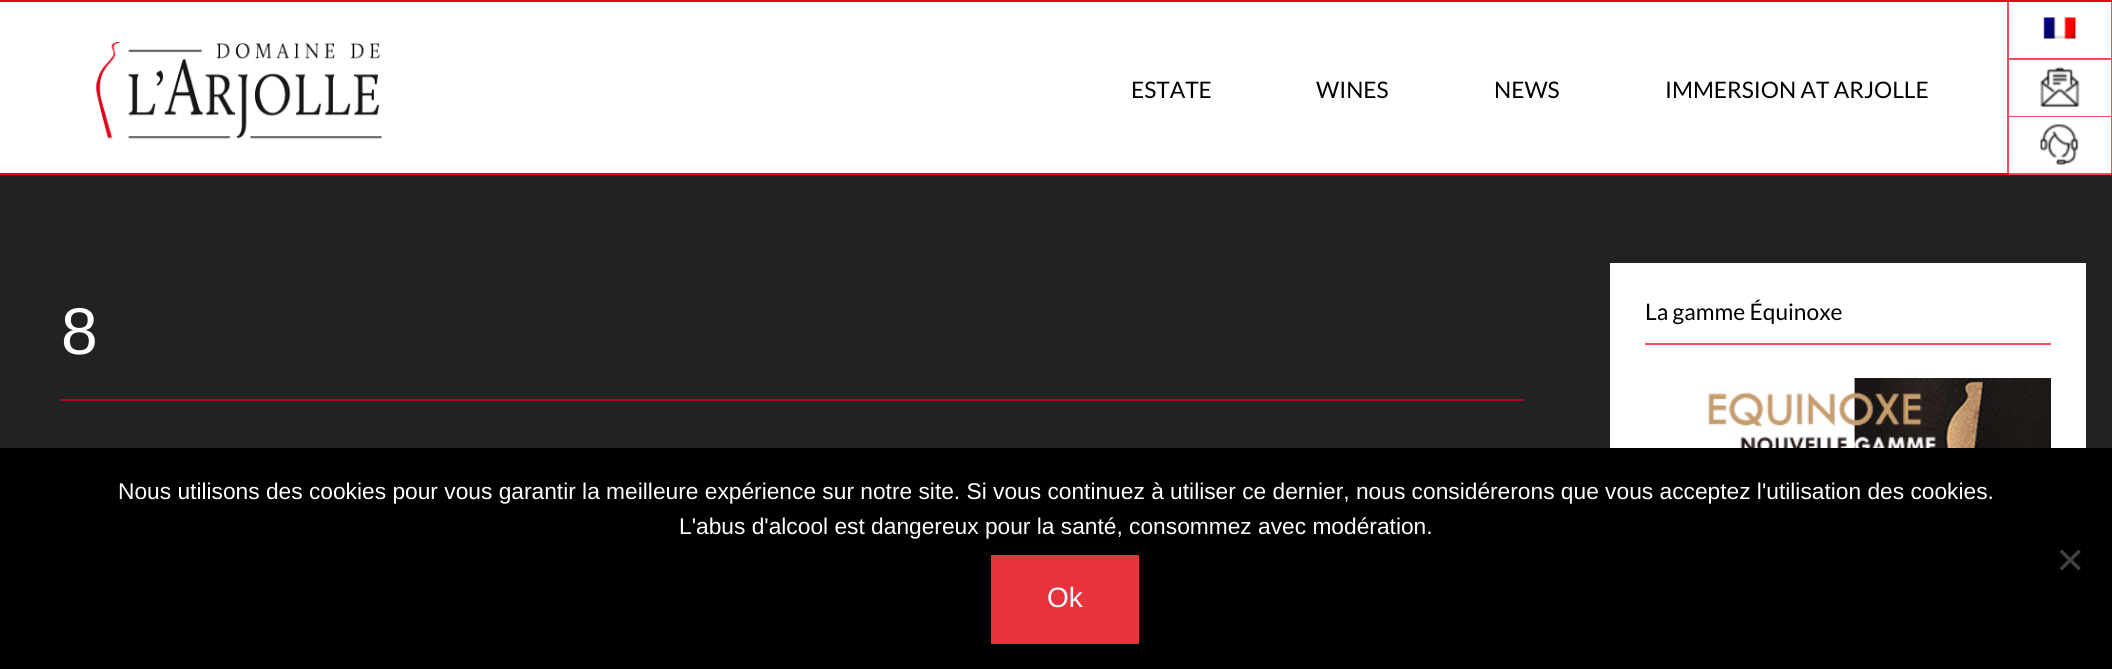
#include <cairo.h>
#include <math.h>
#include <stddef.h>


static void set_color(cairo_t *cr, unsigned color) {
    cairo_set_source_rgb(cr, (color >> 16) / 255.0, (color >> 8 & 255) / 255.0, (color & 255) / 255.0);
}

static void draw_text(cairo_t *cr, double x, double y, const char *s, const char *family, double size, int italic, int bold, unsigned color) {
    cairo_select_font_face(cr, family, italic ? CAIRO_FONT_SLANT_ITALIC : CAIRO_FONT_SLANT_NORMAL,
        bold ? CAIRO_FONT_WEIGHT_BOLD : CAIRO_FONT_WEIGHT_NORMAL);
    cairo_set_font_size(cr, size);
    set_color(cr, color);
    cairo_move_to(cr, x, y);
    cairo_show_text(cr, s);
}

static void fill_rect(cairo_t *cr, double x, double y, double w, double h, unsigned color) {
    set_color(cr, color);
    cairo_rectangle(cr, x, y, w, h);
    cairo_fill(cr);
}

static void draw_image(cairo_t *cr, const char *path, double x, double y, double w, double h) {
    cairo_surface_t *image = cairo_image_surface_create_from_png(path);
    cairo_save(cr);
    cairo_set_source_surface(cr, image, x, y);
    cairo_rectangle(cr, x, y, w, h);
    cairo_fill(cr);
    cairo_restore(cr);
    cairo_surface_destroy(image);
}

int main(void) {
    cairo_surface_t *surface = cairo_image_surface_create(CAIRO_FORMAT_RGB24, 2112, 669);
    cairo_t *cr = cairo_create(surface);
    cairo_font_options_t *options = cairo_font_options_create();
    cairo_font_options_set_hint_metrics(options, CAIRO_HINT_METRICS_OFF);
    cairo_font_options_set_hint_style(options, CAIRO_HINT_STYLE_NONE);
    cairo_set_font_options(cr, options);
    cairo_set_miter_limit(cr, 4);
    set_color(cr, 0xFFFFFF);
    cairo_paint(cr);
    fill_rect(cr, 2007, 2, 2, 173, 0xF14D5B);
    fill_rect(cr, 2111, 2, 1, 173, 0xF14D5B);
    fill_rect(cr, 0, 0, 2112, 2, 0xEB0015);
    fill_rect(cr, 0, 173, 2009, 2, 0xEB0015);
    fill_rect(cr, 2111, 173, 1, 2, 0xEB0015);
    draw_image(cr, "assets/img1.png", 96, 42, 286, 97);
    draw_text(cr, 1131, 98, "ESTATE", "Lato", 22.75, 0, 0, 0x000000);
    draw_text(cr, 1316, 98, "WINES", "Lato", 22.75, 0, 0, 0x000000);
    draw_text(cr, 1494, 98, "NEWS", "Lato", 22.75, 0, 0, 0x000000);
    draw_text(cr, 1665, 98, "IMMERSION AT ARJOLLE", "Lato", 22.75, 0, 0, 0x000000);
    fill_rect(cr, 2009, 58, 102, 2, 0xF14D5B);
    draw_image(cr, "assets/img2.png", 2043, 17, 34, 22);
    fill_rect(cr, 2009, 116, 102, 1, 0xF14D5B);
    draw_image(cr, "assets/img3.png", 2040, 66, 40, 42);
    fill_rect(cr, 2009, 173, 102, 2, 0xF14D5B);
    draw_image(cr, "assets/img4.png", 2040, 124, 39, 41);
    fill_rect(cr, 0, 175, 2112, 273, 0x222222);
    draw_text(cr, 61, 354, "8", "Liberation Sans", 66, 0, 0, 0xFFFFFF);
    fill_rect(cr, 61, 399, 1462, 2, 0xAF0A19);
    fill_rect(cr, 1610, 263, 476, 185, 0xFFFFFF);
    draw_text(cr, 1645, 320, "La gamme Équinoxe", "Lato", 22.75, 0, 0, 0x000000);
    fill_rect(cr, 1645, 343, 406, 2, 0xF14D5B);
    draw_image(cr, "assets/img5.png", 1707, 378, 344, 70);
    fill_rect(cr, 0, 448, 2112, 221, 0x000000);
    draw_text(cr, 118, 499, "Nous utilisons des cookies pour vous garantir la meilleure expérience sur notre site. Si vous continuez à utiliser ce dernier, nous considérerons que vous acceptez l'utilisation des cookies.", "Liberation Sans", 22.75, 0, 0, 0xFFFFFF);
    draw_text(cr, 679, 534, "L'abus d'alcool est dangereux pour la santé, consommez avec modération.", "Liberation Sans", 22.75, 0, 0, 0xFFFFFF);
    set_color(cr, 0x404040);
    cairo_new_path(cr);
    cairo_move_to(cr, 2078.5, 549.5);
    cairo_line_to(cr, 2081, 552);
    cairo_line_to(cr, 2062, 570.5);
    cairo_line_to(cr, 2059.5, 568);
    cairo_close_path(cr);
    cairo_fill(cr);
    cairo_new_path(cr);
    cairo_move_to(cr, 2059.5, 552);
    cairo_line_to(cr, 2062, 549.5);
    cairo_line_to(cr, 2081, 568);
    cairo_line_to(cr, 2078.5, 570.5);
    cairo_close_path(cr);
    cairo_fill(cr);
    fill_rect(cr, 991, 555, 148, 89, 0xEA323D);
    draw_text(cr, 1047, 607, "Ok", "Liberation Sans", 28, 0, 0, 0xFFFFFF);
    cairo_surface_write_to_png(surface, "output.png");
    cairo_font_options_destroy(options);
    cairo_destroy(cr);
    cairo_surface_destroy(surface);
    return 0;
}
